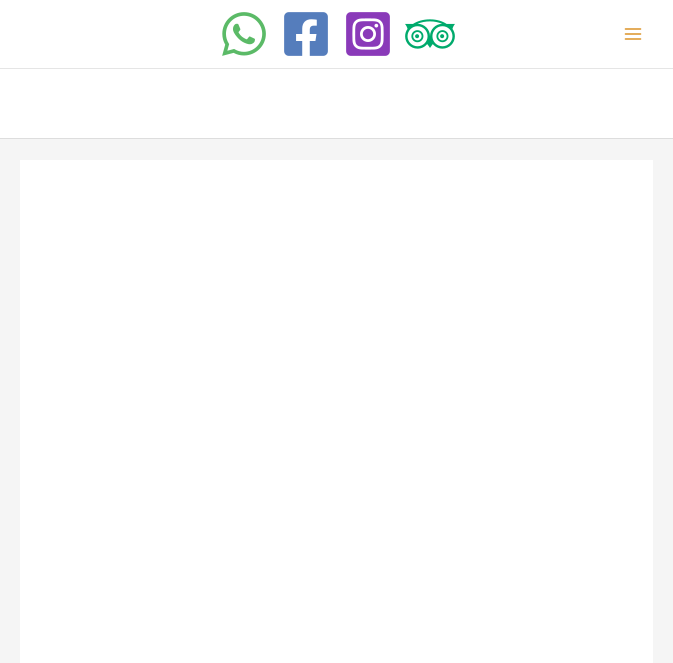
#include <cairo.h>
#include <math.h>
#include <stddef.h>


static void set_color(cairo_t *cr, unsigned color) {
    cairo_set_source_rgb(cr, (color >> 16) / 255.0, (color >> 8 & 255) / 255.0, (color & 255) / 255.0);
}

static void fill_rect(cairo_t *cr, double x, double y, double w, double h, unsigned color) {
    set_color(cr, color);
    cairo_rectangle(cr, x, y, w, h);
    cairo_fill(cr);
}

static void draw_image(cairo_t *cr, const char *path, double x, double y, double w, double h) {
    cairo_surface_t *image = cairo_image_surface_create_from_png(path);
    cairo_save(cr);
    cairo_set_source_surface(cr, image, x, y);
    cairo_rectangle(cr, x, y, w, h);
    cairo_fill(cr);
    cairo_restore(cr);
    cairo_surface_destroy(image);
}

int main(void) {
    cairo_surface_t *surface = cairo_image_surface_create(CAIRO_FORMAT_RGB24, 673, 663);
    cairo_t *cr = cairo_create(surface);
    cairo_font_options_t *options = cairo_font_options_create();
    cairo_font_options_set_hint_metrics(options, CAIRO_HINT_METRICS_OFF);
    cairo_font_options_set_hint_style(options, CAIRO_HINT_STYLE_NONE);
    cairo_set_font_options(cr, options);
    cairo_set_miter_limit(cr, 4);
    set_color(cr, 0xF5F5F5);
    cairo_paint(cr);
    fill_rect(cr, 0, 0, 673, 68, 0xFFFFFF);
    fill_rect(cr, 0, 68, 673, 1, 0xE5E5E5);
    draw_image(cr, "assets/img1.png", 222, 12, 44, 44);
    draw_image(cr, "assets/img2.png", 284, 12, 44, 44);
    draw_image(cr, "assets/img3.png", 346, 12, 44, 44);
    draw_image(cr, "assets/img4.png", 405, 19, 50, 30);
    draw_image(cr, "assets/img5.png", 624, 28, 18, 12);
    fill_rect(cr, 0, 69, 673, 69, 0xFFFFFF);
    fill_rect(cr, 0, 138, 673, 1, 0xDDDDDD);
    fill_rect(cr, 20, 160, 633, 503, 0xFFFFFF);
    cairo_surface_write_to_png(surface, "output.png");
    cairo_font_options_destroy(options);
    cairo_destroy(cr);
    cairo_surface_destroy(surface);
    return 0;
}
